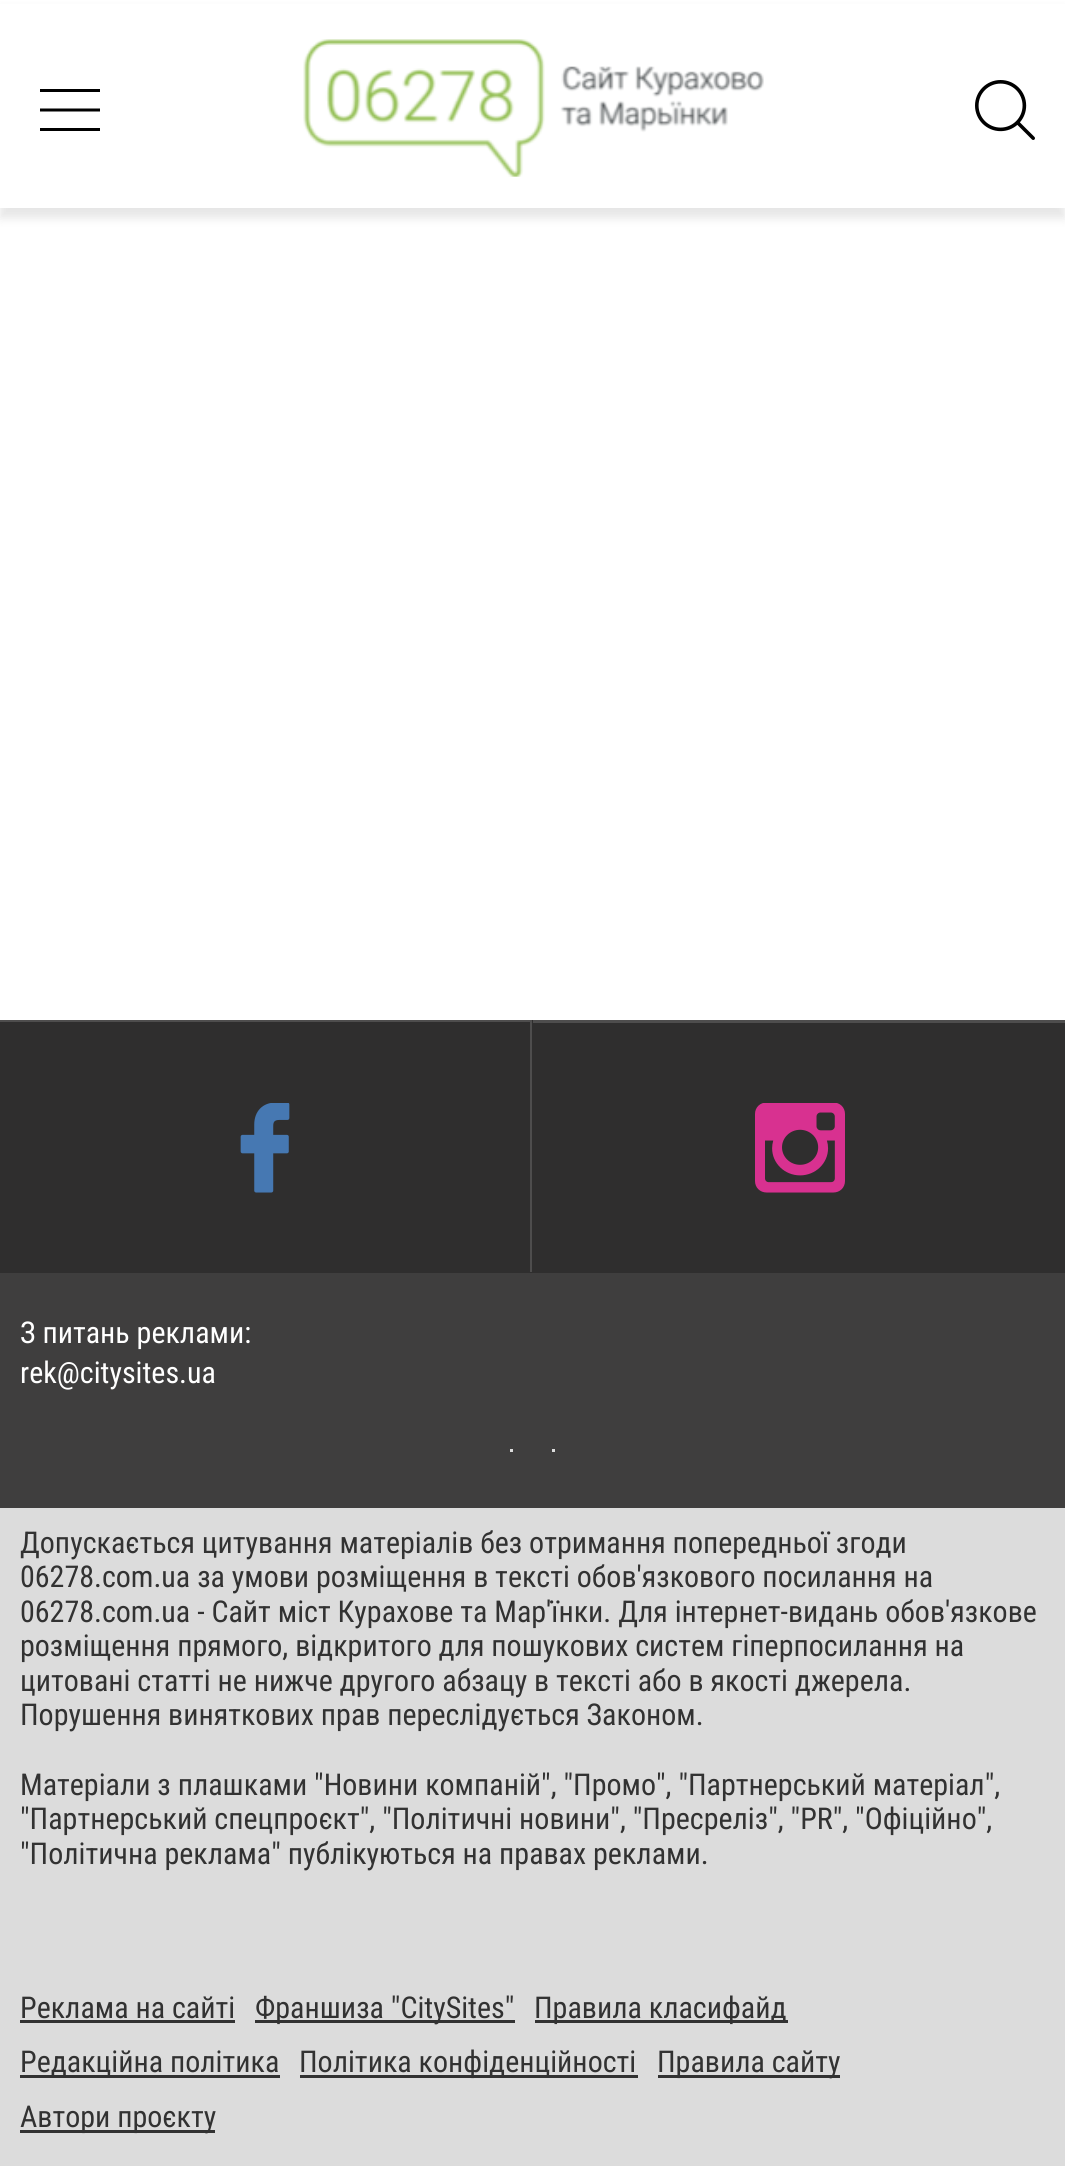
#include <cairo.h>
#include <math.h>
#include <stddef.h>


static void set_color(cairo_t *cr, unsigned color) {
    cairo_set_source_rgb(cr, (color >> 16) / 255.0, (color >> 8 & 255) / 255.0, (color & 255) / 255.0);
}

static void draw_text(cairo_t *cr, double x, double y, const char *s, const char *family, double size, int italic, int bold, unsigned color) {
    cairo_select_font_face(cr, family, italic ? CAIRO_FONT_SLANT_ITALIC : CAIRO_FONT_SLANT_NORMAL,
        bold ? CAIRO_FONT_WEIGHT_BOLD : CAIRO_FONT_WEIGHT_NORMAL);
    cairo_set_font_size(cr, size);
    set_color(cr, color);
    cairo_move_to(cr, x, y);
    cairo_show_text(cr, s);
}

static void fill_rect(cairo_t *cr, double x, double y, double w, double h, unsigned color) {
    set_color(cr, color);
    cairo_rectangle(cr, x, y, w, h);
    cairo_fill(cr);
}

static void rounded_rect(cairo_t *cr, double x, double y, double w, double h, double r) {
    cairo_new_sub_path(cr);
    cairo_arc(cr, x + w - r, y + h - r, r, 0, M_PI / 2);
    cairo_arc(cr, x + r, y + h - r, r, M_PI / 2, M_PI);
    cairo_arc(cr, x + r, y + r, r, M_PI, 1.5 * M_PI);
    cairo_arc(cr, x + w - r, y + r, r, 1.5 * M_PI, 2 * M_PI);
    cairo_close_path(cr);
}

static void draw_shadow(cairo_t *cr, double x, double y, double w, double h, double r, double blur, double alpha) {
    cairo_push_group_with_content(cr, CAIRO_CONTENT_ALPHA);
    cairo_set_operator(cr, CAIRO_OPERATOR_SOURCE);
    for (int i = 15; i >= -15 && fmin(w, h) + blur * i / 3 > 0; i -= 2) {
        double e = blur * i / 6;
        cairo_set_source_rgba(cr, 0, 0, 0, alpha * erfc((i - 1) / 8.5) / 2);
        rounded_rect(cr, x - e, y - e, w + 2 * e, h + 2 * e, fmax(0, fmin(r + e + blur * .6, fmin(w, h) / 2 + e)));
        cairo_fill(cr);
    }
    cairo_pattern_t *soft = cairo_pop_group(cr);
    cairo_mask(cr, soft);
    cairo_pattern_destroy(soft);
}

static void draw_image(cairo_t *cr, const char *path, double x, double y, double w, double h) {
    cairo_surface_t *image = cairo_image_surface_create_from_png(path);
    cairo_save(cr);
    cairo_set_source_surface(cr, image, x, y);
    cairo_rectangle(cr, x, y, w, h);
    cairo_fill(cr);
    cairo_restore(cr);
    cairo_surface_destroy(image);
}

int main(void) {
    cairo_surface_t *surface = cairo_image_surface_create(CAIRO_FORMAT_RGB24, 1065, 2166);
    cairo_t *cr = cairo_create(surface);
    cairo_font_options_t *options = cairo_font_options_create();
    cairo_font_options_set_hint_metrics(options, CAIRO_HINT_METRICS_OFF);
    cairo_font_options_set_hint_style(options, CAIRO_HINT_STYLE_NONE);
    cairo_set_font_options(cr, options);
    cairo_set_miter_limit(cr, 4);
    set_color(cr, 0xFFFFFF);
    cairo_paint(cr);
    set_color(cr, 0x000000);
    draw_shadow(cr, 0, 10, 1065, 208, 0, 5, 0.1);
    fill_rect(cr, 0, 4, 1065, 204, 0xFFFFFF);
    fill_rect(cr, 40, 89, 60, 3, 0x000000);
    cairo_new_path(cr);
    cairo_move_to(cr, 40, 110);
    cairo_line_to(cr, 100, 110);
    cairo_set_line_width(cr, 3);
    cairo_stroke(cr);
    fill_rect(cr, 40, 128, 60, 3, 0x000000);
    draw_image(cr, "assets/img1.png", 303, 39, 461, 138);
    draw_image(cr, "assets/img2.png", 975, 80, 60, 60);
    fill_rect(cr, 0, 1273, 1065, 235, 0x3F3E3E);
    fill_rect(cr, 0, 1020, 1065, 253, 0x2F2E2E);
    set_color(cr, 0x4E4D4D);
    cairo_new_path(cr);
    cairo_move_to(cr, 0, 1020);
    cairo_line_to(cr, 532, 1020);
    cairo_line_to(cr, 530, 1022);
    cairo_line_to(cr, 0, 1022);
    cairo_close_path(cr);
    cairo_fill(cr);
    cairo_set_source_rgba(cr, 1, 1, 1, 0.15);
    cairo_new_path(cr);
    cairo_move_to(cr, 532, 1020);
    cairo_line_to(cr, 532, 1272);
    cairo_line_to(cr, 530, 1272);
    cairo_line_to(cr, 530, 1022);
    cairo_close_path(cr);
    cairo_fill(cr);
    draw_image(cr, "assets/img3.png", 240, 1103, 50, 90);
    fill_rect(cr, 533, 1020, 532, 3, 0x4E4D4D);
    draw_image(cr, "assets/img4.png", 755, 1103, 90, 90);
    draw_text(cr, 20, 1343, "З питань реклами:", "Roboto Condensed", 30, 0, 0, 0xFFFFFF);
    draw_text(cr, 20, 1383, "rek@citysites.ua", "Roboto Condensed", 30, 0, 0, 0xFFFFFF);
    fill_rect(cr, 510, 1449, 3, 3, 0xDCDCDC);
    fill_rect(cr, 552, 1449, 3, 3, 0xDCDCDC);
    fill_rect(cr, 0, 1508, 1065, 658, 0xDCDCDC);
    draw_text(cr, 20, 1553, "Допускається цитування матеріалів без отримання попередньої згоди", "Roboto Condensed", 30, 0, 0, 0x323232);
    draw_text(cr, 20, 1587, "06278.com.ua за умови розміщення в тексті обов'язкового посилання на", "Roboto Condensed", 30, 0, 0, 0x323232);
    draw_text(cr, 20, 1622, "06278.com.ua - Сайт міст Курахове та Мар'їнки. Для інтернет-видань обов'язкове", "Roboto Condensed", 30, 0, 0, 0x323232);
    draw_text(cr, 20, 1656, "розміщення прямого, відкритого для пошукових систем гіперпосилання на", "Roboto Condensed", 30, 0, 0, 0x323232);
    draw_text(cr, 20, 1691, "цитовані статті не нижче другого абзацу в тексті або в якості джерела.", "Roboto Condensed", 30, 0, 0, 0x323232);
    draw_text(cr, 20, 1725, "Порушення виняткових прав переслідується Законом.", "Roboto Condensed", 30, 0, 0, 0x323232);
    draw_text(cr, 20, 1795, "Матеріали з плашками \"Новини компаній\", \"Промо\", \"Партнерський матеріал\",", "Roboto Condensed", 30, 0, 0, 0x323232);
    draw_text(cr, 20, 1829, "\"Партнерський спецпроєкт\", \"Політичні новини\", \"Пресреліз\", \"PR\", \"Офіційно\",", "Roboto Condensed", 30, 0, 0, 0x323232);
    draw_text(cr, 20, 1864, "\"Політична реклама\" публікуються на правах реклами.", "Roboto Condensed", 30, 0, 0, 0x323232);
    draw_text(cr, 20, 2018, "Реклама на сайті", "Roboto Condensed", 30, 0, 0, 0x323232);
    fill_rect(cr, 20, 2020, 215, 3, 0x323232);
    fill_rect(cr, 255, 2020, 260, 3, 0x323232);
    draw_text(cr, 255, 2018, "Франшиза \"CitySites\"", "Roboto Condensed", 30, 0, 0, 0x323232);
    fill_rect(cr, 535, 2020, 253, 3, 0x323232);
    draw_text(cr, 534, 2018, "Правила класифайд", "Roboto Condensed", 30, 0, 0, 0x323232);
    fill_rect(cr, 20, 2075, 260, 3, 0x323232);
    draw_text(cr, 20, 2072, "Редакційна політика", "Roboto Condensed", 30, 0, 0, 0x323232);
    fill_rect(cr, 300, 2075, 338, 3, 0x323232);
    draw_text(cr, 299, 2072, "Політика конфіденційності", "Roboto Condensed", 30, 0, 0, 0x323232);
    fill_rect(cr, 658, 2075, 182, 3, 0x323232);
    draw_text(cr, 657, 2072, "Правила сайту", "Roboto Condensed", 30, 0, 0, 0x323232);
    fill_rect(cr, 20, 2130, 195, 3, 0x323232);
    draw_text(cr, 20, 2127, "Автори проєкту", "Roboto Condensed", 30, 0, 0, 0x323232);
    cairo_surface_write_to_png(surface, "output.png");
    cairo_font_options_destroy(options);
    cairo_destroy(cr);
    cairo_surface_destroy(surface);
    return 0;
}
